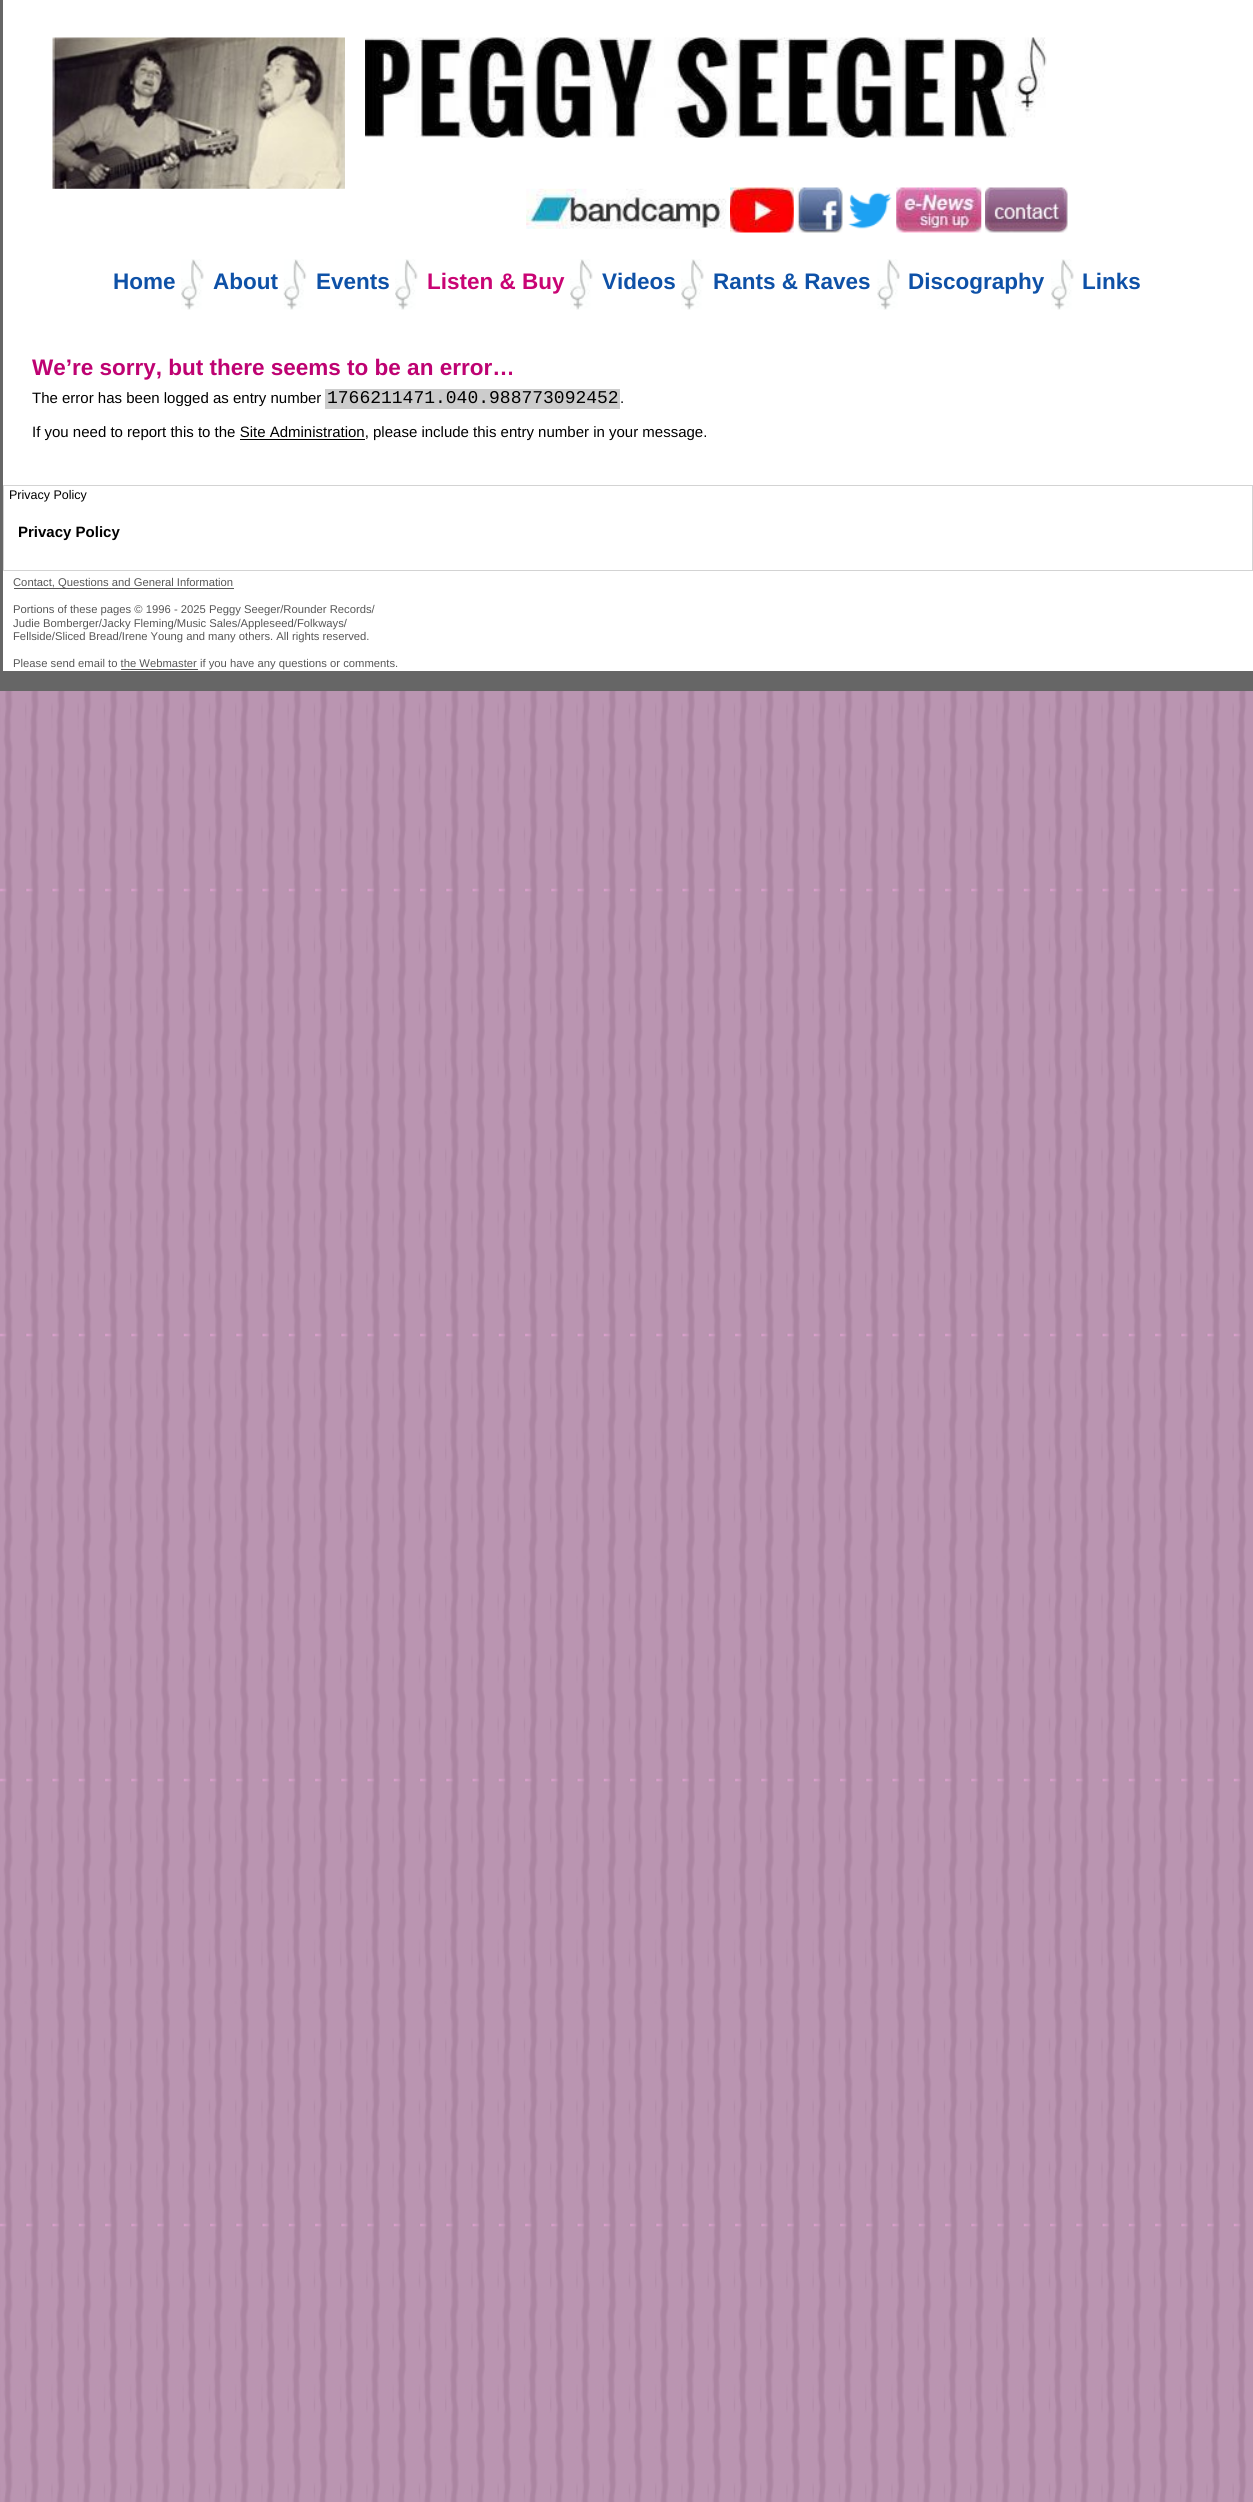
#include <cairo.h>
#include <math.h>
#include <stddef.h>


static void set_color(cairo_t *cr, unsigned color) {
    cairo_set_source_rgb(cr, (color >> 16) / 255.0, (color >> 8 & 255) / 255.0, (color & 255) / 255.0);
}

static void draw_text(cairo_t *cr, double x, double y, const char *s, const char *family, double size, int italic, int bold, unsigned color) {
    cairo_select_font_face(cr, family, italic ? CAIRO_FONT_SLANT_ITALIC : CAIRO_FONT_SLANT_NORMAL,
        bold ? CAIRO_FONT_WEIGHT_BOLD : CAIRO_FONT_WEIGHT_NORMAL);
    cairo_set_font_size(cr, size);
    set_color(cr, color);
    cairo_move_to(cr, x, y);
    cairo_show_text(cr, s);
}

static void fill_rect(cairo_t *cr, double x, double y, double w, double h, unsigned color) {
    set_color(cr, color);
    cairo_rectangle(cr, x, y, w, h);
    cairo_fill(cr);
}

static void draw_image(cairo_t *cr, const char *path, double x, double y, double w, double h) {
    cairo_surface_t *image = cairo_image_surface_create_from_png(path);
    cairo_save(cr);
    cairo_set_source_surface(cr, image, x, y);
    cairo_rectangle(cr, x, y, w, h);
    cairo_fill(cr);
    cairo_restore(cr);
    cairo_surface_destroy(image);
}

int main(void) {
    cairo_surface_t *surface = cairo_image_surface_create(CAIRO_FORMAT_RGB24, 1253, 2502);
    cairo_t *cr = cairo_create(surface);
    cairo_font_options_t *options = cairo_font_options_create();
    cairo_font_options_set_hint_metrics(options, CAIRO_HINT_METRICS_OFF);
    cairo_font_options_set_hint_style(options, CAIRO_HINT_STYLE_NONE);
    cairo_set_font_options(cr, options);
    cairo_set_miter_limit(cr, 4);
    set_color(cr, 0xFFFFFF);
    cairo_paint(cr);
    draw_image(cr, "assets/img1.png", 0, 691, 1253, 1811);
    fill_rect(cr, 0, 0, 1253, 691, 0x666666);
    fill_rect(cr, 3, 0, 1250, 485, 0xFFFFFF);
    draw_image(cr, "assets/img2.png", 52, 37, 293, 152);
    draw_image(cr, "assets/img3.png", 365, 37, 682, 101);
    draw_image(cr, "assets/img4.png", 526, 188, 201, 41);
    draw_image(cr, "assets/img5.png", 730, 187, 64, 46);
    draw_image(cr, "assets/img6.png", 797, 187, 46, 46);
    draw_image(cr, "assets/img7.png", 848, 192, 44, 37);
    draw_image(cr, "assets/img8.png", 896, 187, 86, 46);
    draw_image(cr, "assets/img9.png", 985, 187, 83, 46);
    draw_text(cr, 113, 289, "Home", "Liberation Sans", 22.5, 0, 1, 0x0E51A7);
    draw_image(cr, "assets/img10.png", 181, 259, 23, 51);
    draw_text(cr, 213, 289, "About", "Liberation Sans", 22.5, 0, 1, 0x0E51A7);
    draw_image(cr, "assets/img11.png", 283, 259, 24, 51);
    draw_text(cr, 316, 289, "Events", "Liberation Sans", 22.5, 0, 1, 0x0E51A7);
    draw_image(cr, "assets/img12.png", 395, 259, 23, 51);
    draw_text(cr, 427, 289, "Listen & Buy", "Liberation Sans", 22.5, 0, 1, 0xC90474);
    draw_image(cr, "assets/img13.png", 570, 259, 23, 51);
    draw_text(cr, 602, 289, "Videos", "Liberation Sans", 22.5, 0, 1, 0x0E51A7);
    draw_image(cr, "assets/img10.png", 681, 259, 23, 51);
    draw_text(cr, 713, 289, "Rants & Raves", "Liberation Sans", 22.5, 0, 1, 0x0E51A7);
    draw_image(cr, "assets/img14.png", 877, 259, 23, 51);
    draw_text(cr, 908, 289, "Discography", "Liberation Sans", 22.5, 0, 1, 0x0E51A7);
    draw_image(cr, "assets/img10.png", 1051, 259, 23, 51);
    draw_text(cr, 1082, 289, "Links", "Liberation Sans", 22.5, 0, 1, 0x0E51A7);
    draw_text(cr, 32, 375, "We’re sorry, but there seems to be an error…", "Liberation Sans", 22.5, 0, 1, 0xBE0272);
    draw_text(cr, 32, 403, "The error has been logged as entry number", "Liberation Sans", 15, 0, 0, 0x000000);
    fill_rect(cr, 325, 389, 295, 20, 0xCCCCCC);
    draw_text(cr, 327, 403, "1766211471.040.988773092452", "Liberation Mono", 18, 0, 0, 0x000000);
    draw_text(cr, 620, 403, ".", "Liberation Sans", 15, 0, 0, 0x000000);
    draw_text(cr, 32, 437, "If you need to report this to the Site Administration, please include this entry number in your message.", "Liberation Sans", 15, 0, 0, 0x000000);
    fill_rect(cr, 240, 439, 125, 1, 0x000000);
    set_color(cr, 0xFFFFFF);
    cairo_rectangle(cr, 3.5, 485.5, 1249, 85);
    cairo_fill_preserve(cr);
    set_color(cr, 0xD3D3D3);
    cairo_set_line_width(cr, 1);
    cairo_stroke(cr);
    draw_text(cr, 9, 499, "Privacy Policy", "Liberation Sans", 12.5, 0, 0, 0x000000);
    draw_text(cr, 18, 537, "Privacy Policy", "Liberation Sans", 15, 0, 1, 0x000000);
    fill_rect(cr, 3, 571, 1250, 100, 0xFFFFFF);
    fill_rect(cr, 14, 588, 220, 1, 0x575757);
    draw_text(cr, 13, 586, "Contact, Questions and General Information", "Liberation Sans", 11.25, 0, 0, 0x575757);
    draw_text(cr, 13, 613, "Portions of these pages © 1996 - 2025 Peggy Seeger/Rounder Records/", "Liberation Sans", 11.25, 0, 0, 0x575757);
    draw_text(cr, 13, 627, "Judie Bomberger/Jacky Fleming/Music Sales/Appleseed/Folkways/", "Liberation Sans", 11.25, 0, 0, 0x575757);
    draw_text(cr, 13, 640, "Fellside/Sliced Bread/Irene Young and many others. All rights reserved.", "Liberation Sans", 11.25, 0, 0, 0x575757);
    draw_text(cr, 13, 667, "Please send email to the Webmaster if you have any questions or comments.", "Liberation Sans", 11.25, 0, 0, 0x575757);
    fill_rect(cr, 121, 669, 77, 1, 0x575757);
    cairo_surface_write_to_png(surface, "output.png");
    cairo_font_options_destroy(options);
    cairo_destroy(cr);
    cairo_surface_destroy(surface);
    return 0;
}
